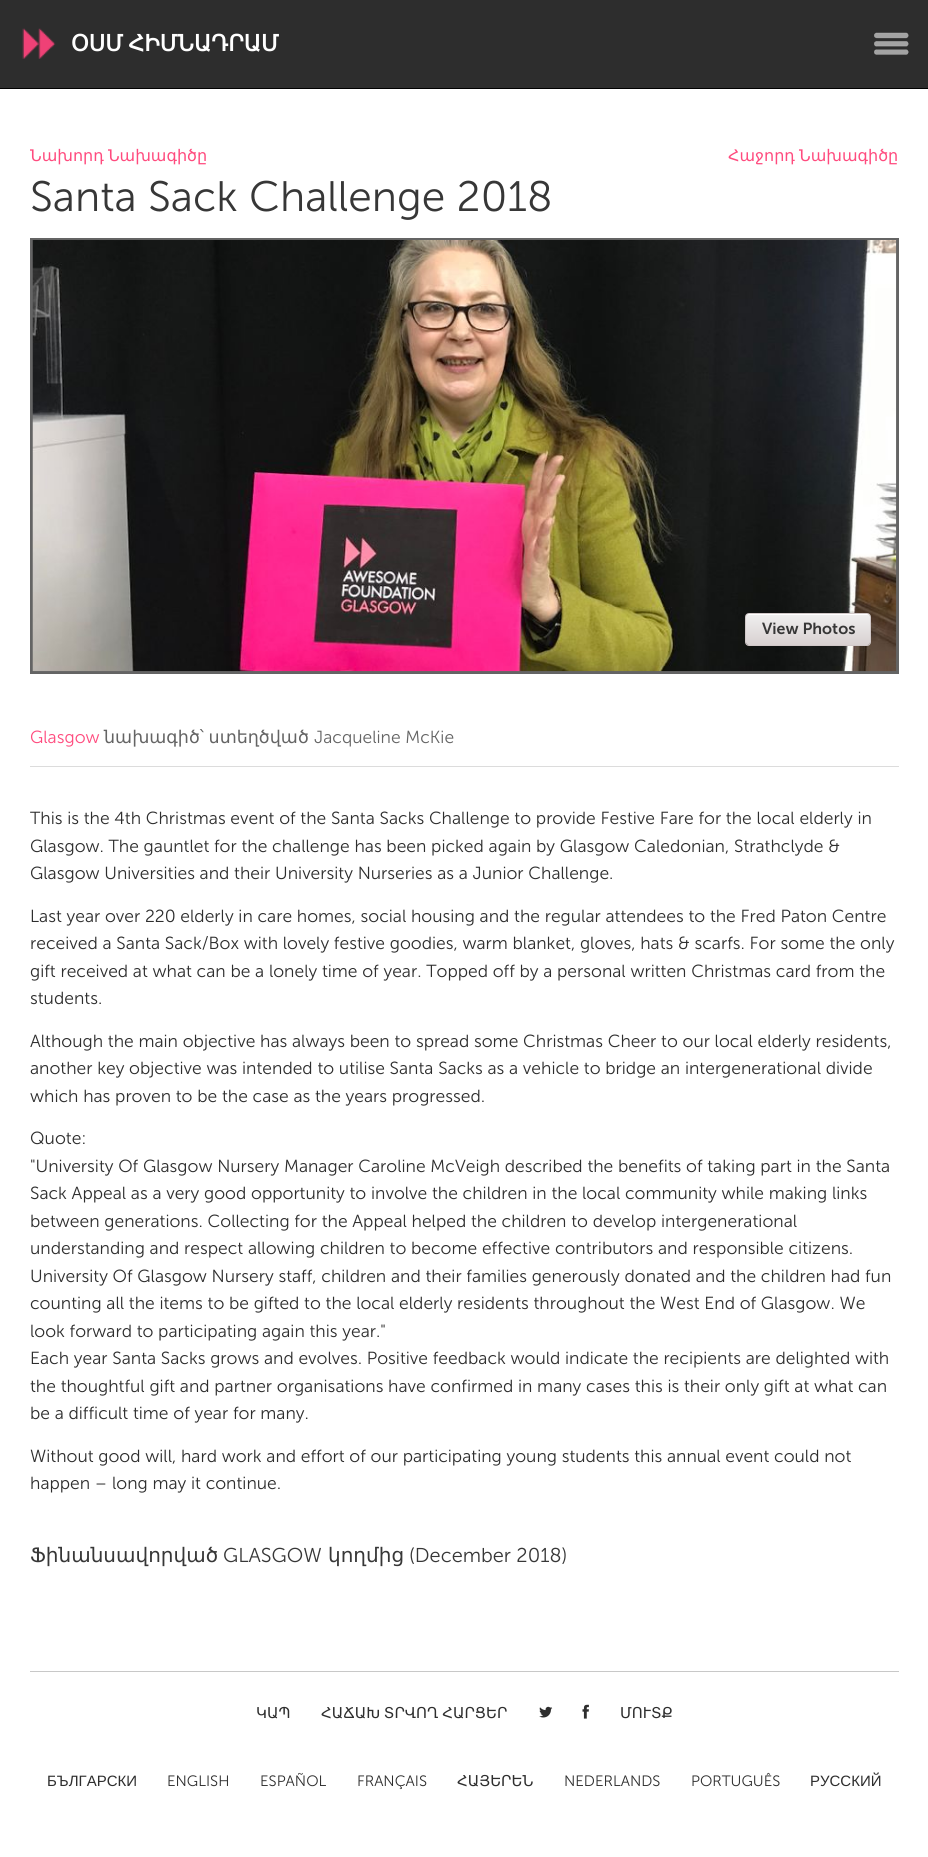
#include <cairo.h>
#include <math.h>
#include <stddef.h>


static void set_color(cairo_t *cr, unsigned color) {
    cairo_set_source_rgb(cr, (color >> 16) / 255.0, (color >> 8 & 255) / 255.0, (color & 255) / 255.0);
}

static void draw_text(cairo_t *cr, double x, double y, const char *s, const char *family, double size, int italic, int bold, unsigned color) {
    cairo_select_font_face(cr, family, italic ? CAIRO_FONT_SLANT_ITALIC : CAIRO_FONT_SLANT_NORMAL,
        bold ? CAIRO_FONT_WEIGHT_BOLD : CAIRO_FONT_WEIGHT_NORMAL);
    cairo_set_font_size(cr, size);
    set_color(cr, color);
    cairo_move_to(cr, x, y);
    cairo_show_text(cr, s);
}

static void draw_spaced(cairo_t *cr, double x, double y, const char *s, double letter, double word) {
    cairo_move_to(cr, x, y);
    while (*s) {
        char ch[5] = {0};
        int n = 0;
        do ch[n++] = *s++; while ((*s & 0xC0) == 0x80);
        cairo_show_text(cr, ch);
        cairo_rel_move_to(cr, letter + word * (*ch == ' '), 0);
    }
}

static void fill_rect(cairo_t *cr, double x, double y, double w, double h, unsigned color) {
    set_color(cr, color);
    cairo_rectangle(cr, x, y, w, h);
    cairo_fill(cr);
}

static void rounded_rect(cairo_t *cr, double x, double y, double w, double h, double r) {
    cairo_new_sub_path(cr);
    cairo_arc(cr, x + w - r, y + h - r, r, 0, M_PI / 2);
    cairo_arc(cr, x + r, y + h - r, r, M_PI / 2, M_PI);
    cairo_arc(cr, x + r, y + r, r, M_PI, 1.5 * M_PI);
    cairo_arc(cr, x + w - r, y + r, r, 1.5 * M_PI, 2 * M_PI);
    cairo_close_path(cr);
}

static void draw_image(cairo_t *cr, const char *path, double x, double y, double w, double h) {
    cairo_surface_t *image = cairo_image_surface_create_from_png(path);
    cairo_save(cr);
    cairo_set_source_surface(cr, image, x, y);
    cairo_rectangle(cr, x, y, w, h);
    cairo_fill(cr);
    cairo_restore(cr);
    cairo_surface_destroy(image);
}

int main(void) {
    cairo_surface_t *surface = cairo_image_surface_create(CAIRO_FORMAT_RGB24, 928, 1857);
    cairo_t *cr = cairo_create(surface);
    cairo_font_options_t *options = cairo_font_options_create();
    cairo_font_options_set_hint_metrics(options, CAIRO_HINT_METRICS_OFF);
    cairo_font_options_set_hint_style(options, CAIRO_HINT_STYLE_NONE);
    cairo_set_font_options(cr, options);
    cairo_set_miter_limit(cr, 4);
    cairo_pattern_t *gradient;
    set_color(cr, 0xFFFFFF);
    cairo_paint(cr);
    fill_rect(cr, 0, 0, 928, 88, 0x2D2D2D);
    fill_rect(cr, 0, 88, 928, 1, 0x000000);
    draw_image(cr, "assets/img1.png", 22, 28, 34, 31);
    cairo_select_font_face(cr, "DejaVu Sans", CAIRO_FONT_SLANT_NORMAL, CAIRO_FONT_WEIGHT_BOLD);
    cairo_set_font_size(cr, 22.5);
    set_color(cr, 0xFFFFFF);
    draw_spaced(cr, 71, 51, "ՕՍՄ ՀԻՄՆԱԴՐԱՄ", 0, -2);
    draw_image(cr, "assets/img2.png", 874, 32, 35, 23);
    cairo_select_font_face(cr, "DejaVu Sans", CAIRO_FONT_SLANT_NORMAL, CAIRO_FONT_WEIGHT_NORMAL);
    cairo_set_font_size(cr, 16);
    set_color(cr, 0xFF4B7E);
    draw_spaced(cr, 30, 161, "Նախորդ Նախագիծը", 0, -1);
    draw_spaced(cr, 728, 161, "Հաջորդ Նախագիծը", 0, -1);
    draw_text(cr, 30, 211, "Santa Sack Challenge 2018", "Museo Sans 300 Light", 42.5, 0, 0, 0x373737);
    fill_rect(cr, 30, 238, 869, 436, 0x646464);
    draw_image(cr, "assets/img3.png", 32, 240, 865, 432);
    gradient = cairo_pattern_create_linear(808, 614, 808, 645);
    cairo_pattern_add_color_stop_rgba(gradient, 0, 0.941, 0.941, 0.941, 1);
    cairo_pattern_add_color_stop_rgba(gradient, 1, 0.847, 0.816, 0.816, 1);
    cairo_set_source(cr, gradient);
    cairo_pattern_destroy(gradient);
    rounded_rect(cr, 746, 614, 124, 31, 2.5);
    cairo_fill(cr);
    set_color(cr, 0xFFFFFF);
    cairo_new_path(cr);
    cairo_move_to(cr, 749, 615);
    cairo_line_to(cr, 868, 615);
    cairo_curve_to(cr, 869, 615, 870, 616, 870, 618);
    cairo_line_to(cr, 870, 616);
    cairo_curve_to(cr, 870, 615, 869, 614, 868, 614);
    cairo_line_to(cr, 748, 614);
    cairo_curve_to(cr, 747, 614, 746, 615, 746, 616);
    cairo_line_to(cr, 746, 618);
    cairo_curve_to(cr, 746, 616, 747, 615, 749, 615);
    cairo_close_path(cr);
    cairo_fill(cr);
    rounded_rect(cr, 745.5, 613.5, 125, 32, 3.5);
    set_color(cr, 0xD1C8C8);
    cairo_set_line_width(cr, 1);
    cairo_stroke(cr);
    draw_text(cr, 762, 634, "View Photos", "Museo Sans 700 SemiBold", 16, 0, 0, 0x373737);
    fill_rect(cr, 30, 766, 869, 1, 0xDCDCDC);
    draw_text(cr, 30, 743, "Glasgow", "Museo Sans 300 Light", 17.5, 0, 0, 0xFF4B7E);
    cairo_select_font_face(cr, "DejaVu Sans", CAIRO_FONT_SLANT_NORMAL, CAIRO_FONT_WEIGHT_NORMAL);
    set_color(cr, 0x646464);
    draw_spaced(cr, 104, 743, "նախագիծ՝ ստեղծված", 0, -1);
    draw_text(cr, 314, 743, "Jacqueline McKie", "Museo Sans 300 Light", 17.5, 0, 0, 0x646464);
    draw_text(cr, 30, 824, "This is the 4th Christmas event of the Santa Sacks Challenge to provide Festive Fare for the local elderly in", "Museo Sans 300 Light", 17.5, 0, 0, 0x2E2E2E);
    draw_text(cr, 30, 852, "Glasgow. The gauntlet for the challenge has been picked again by Glasgow Caledonian, Strathclyde &", "Museo Sans 300 Light", 17.5, 0, 0, 0x2E2E2E);
    draw_text(cr, 30, 879, "Glasgow Universities and their University Nurseries as a Junior Challenge.", "Museo Sans 300 Light", 17.5, 0, 0, 0x2E2E2E);
    draw_text(cr, 30, 922, "Last year over 220 elderly in care homes, social housing and the regular attendees to the Fred Paton Centre", "Museo Sans 300 Light", 17.5, 0, 0, 0x2E2E2E);
    draw_text(cr, 30, 949, "received a Santa Sack/Box with lovely festive goodies, warm blanket, gloves, hats & scarfs. For some the only", "Museo Sans 300 Light", 17.5, 0, 0, 0x2E2E2E);
    draw_text(cr, 30, 977, "gift received at what can be a lonely time of year. Topped off by a personal written Christmas card from the", "Museo Sans 300 Light", 17.5, 0, 0, 0x2E2E2E);
    draw_text(cr, 30, 1004, "students.", "Museo Sans 300 Light", 17.5, 0, 0, 0x2E2E2E);
    draw_text(cr, 30, 1047, "Although the main objective has always been to spread some Christmas Cheer to our local elderly residents,", "Museo Sans 300 Light", 17.5, 0, 0, 0x2E2E2E);
    draw_text(cr, 30, 1074, "another key objective was intended to utilise Santa Sacks as a vehicle to bridge an intergenerational divide", "Museo Sans 300 Light", 17.5, 0, 0, 0x2E2E2E);
    draw_text(cr, 30, 1102, "which has proven to be the case as the years progressed.", "Museo Sans 300 Light", 17.5, 0, 0, 0x2E2E2E);
    draw_text(cr, 30, 1144, "Quote:", "Museo Sans 300 Light", 17.5, 0, 0, 0x2E2E2E);
    draw_text(cr, 30, 1172, "\"University Of Glasgow Nursery Manager Caroline McVeigh described the benefits of taking part in the Santa", "Museo Sans 300 Light", 17.5, 0, 0, 0x2E2E2E);
    draw_text(cr, 30, 1199, "Sack Appeal as a very good opportunity to involve the children in the local community while making links", "Museo Sans 300 Light", 17.5, 0, 0, 0x2E2E2E);
    draw_text(cr, 30, 1227, "between generations. Collecting for the Appeal helped the children to develop intergenerational", "Museo Sans 300 Light", 17.5, 0, 0, 0x2E2E2E);
    draw_text(cr, 30, 1254, "understanding and respect allowing children to become effective contributors and responsible citizens.", "Museo Sans 300 Light", 17.5, 0, 0, 0x2E2E2E);
    draw_text(cr, 30, 1282, "University Of Glasgow Nursery staff, children and their families generously donated and the children had fun", "Museo Sans 300 Light", 17.5, 0, 0, 0x2E2E2E);
    draw_text(cr, 30, 1309, "counting all the items to be gifted to the local elderly residents throughout the West End of Glasgow. We", "Museo Sans 300 Light", 17.5, 0, 0, 0x2E2E2E);
    draw_text(cr, 30, 1337, "look forward to participating again this year.\"", "Museo Sans 300 Light", 17.5, 0, 0, 0x2E2E2E);
    draw_text(cr, 30, 1364, "Each year Santa Sacks grows and evolves. Positive feedback would indicate the recipients are delighted with", "Museo Sans 300 Light", 17.5, 0, 0, 0x2E2E2E);
    draw_text(cr, 30, 1392, "the thoughtful gift and partner organisations have confirmed in many cases this is their only gift at what can", "Museo Sans 300 Light", 17.5, 0, 0, 0x2E2E2E);
    draw_text(cr, 30, 1419, "be a difficult time of year for many.", "Museo Sans 300 Light", 17.5, 0, 0, 0x2E2E2E);
    draw_text(cr, 30, 1462, "Without good will, hard work and effort of our participating young students this annual event could not", "Museo Sans 300 Light", 17.5, 0, 0, 0x2E2E2E);
    draw_text(cr, 30, 1489, "happen – long may it continue.", "Museo Sans 300 Light", 17.5, 0, 0, 0x2E2E2E);
    draw_text(cr, 30, 1562, "Ֆինանսավորված", "DejaVu Sans", 20, 0, 0, 0x373737);
    draw_text(cr, 223, 1562, "GLASGOW", "Museo Sans 300 Light", 20, 0, 0, 0x373737);
    draw_text(cr, 328, 1562, "կողմից", "DejaVu Sans", 20, 0, 0, 0x373737);
    draw_text(cr, 409, 1562, "(December 2018)", "Museo Sans 300 Light", 20, 0, 0, 0x373737);
    fill_rect(cr, 30, 1671, 869, 1, 0xC8C8C8);
    draw_text(cr, 256, 1718, "ԿԱՊ", "DejaVu Sans", 15, 0, 0, 0x2E2E2E);
    draw_spaced(cr, 321, 1718, "ՀԱՃԱԽ ՏՐՎՈՂ ՀԱՐՑԵՐ", 0, -1);
    draw_image(cr, "assets/img4.png", 539, 1706, 14, 12);
    draw_image(cr, "assets/img5.png", 582, 1704, 7, 15);
    draw_text(cr, 620, 1718, "ՄՈՒՏՔ", "DejaVu Sans", 15, 0, 0, 0x2E2E2E);
    draw_text(cr, 47, 1786, "БЪЛГАРСКИ", "Liberation Sans", 15, 0, 0, 0x2E2E2E);
    draw_text(cr, 167, 1786, "ENGLISH", "Museo Sans 300 Light", 15, 0, 0, 0x2E2E2E);
    draw_text(cr, 260, 1786, "ESPAÑOL", "Museo Sans 300 Light", 15, 0, 0, 0x2E2E2E);
    draw_text(cr, 357, 1786, "FRANÇAIS", "Museo Sans 300 Light", 15, 0, 0, 0x2E2E2E);
    draw_text(cr, 457, 1786, "ՀԱՅԵՐԵՆ", "DejaVu Sans", 15, 0, 0, 0x2E2E2E);
    draw_text(cr, 564, 1786, "NEDERLANDS", "Museo Sans 300 Light", 15, 0, 0, 0x2E2E2E);
    draw_text(cr, 691, 1786, "PORTUGUÊS", "Museo Sans 300 Light", 15, 0, 0, 0x2E2E2E);
    draw_text(cr, 810, 1786, "РУССКИЙ", "Liberation Sans", 15, 0, 0, 0x2E2E2E);
    cairo_surface_write_to_png(surface, "output.png");
    cairo_font_options_destroy(options);
    cairo_destroy(cr);
    cairo_surface_destroy(surface);
    return 0;
}
